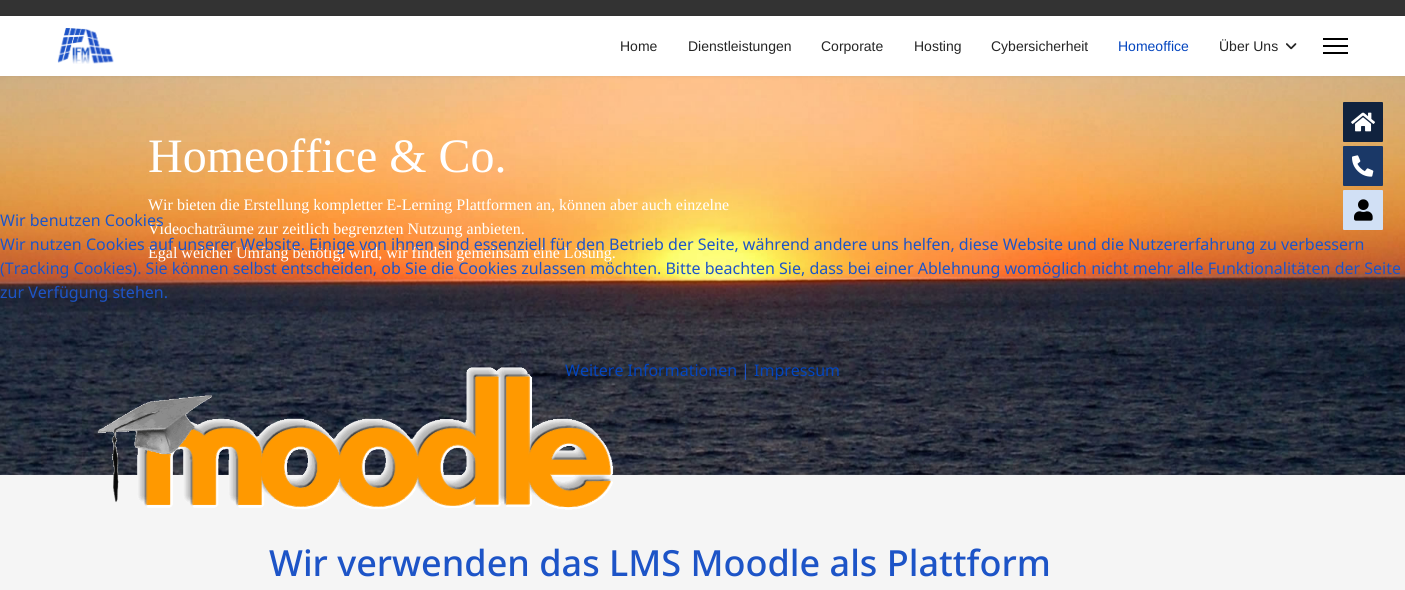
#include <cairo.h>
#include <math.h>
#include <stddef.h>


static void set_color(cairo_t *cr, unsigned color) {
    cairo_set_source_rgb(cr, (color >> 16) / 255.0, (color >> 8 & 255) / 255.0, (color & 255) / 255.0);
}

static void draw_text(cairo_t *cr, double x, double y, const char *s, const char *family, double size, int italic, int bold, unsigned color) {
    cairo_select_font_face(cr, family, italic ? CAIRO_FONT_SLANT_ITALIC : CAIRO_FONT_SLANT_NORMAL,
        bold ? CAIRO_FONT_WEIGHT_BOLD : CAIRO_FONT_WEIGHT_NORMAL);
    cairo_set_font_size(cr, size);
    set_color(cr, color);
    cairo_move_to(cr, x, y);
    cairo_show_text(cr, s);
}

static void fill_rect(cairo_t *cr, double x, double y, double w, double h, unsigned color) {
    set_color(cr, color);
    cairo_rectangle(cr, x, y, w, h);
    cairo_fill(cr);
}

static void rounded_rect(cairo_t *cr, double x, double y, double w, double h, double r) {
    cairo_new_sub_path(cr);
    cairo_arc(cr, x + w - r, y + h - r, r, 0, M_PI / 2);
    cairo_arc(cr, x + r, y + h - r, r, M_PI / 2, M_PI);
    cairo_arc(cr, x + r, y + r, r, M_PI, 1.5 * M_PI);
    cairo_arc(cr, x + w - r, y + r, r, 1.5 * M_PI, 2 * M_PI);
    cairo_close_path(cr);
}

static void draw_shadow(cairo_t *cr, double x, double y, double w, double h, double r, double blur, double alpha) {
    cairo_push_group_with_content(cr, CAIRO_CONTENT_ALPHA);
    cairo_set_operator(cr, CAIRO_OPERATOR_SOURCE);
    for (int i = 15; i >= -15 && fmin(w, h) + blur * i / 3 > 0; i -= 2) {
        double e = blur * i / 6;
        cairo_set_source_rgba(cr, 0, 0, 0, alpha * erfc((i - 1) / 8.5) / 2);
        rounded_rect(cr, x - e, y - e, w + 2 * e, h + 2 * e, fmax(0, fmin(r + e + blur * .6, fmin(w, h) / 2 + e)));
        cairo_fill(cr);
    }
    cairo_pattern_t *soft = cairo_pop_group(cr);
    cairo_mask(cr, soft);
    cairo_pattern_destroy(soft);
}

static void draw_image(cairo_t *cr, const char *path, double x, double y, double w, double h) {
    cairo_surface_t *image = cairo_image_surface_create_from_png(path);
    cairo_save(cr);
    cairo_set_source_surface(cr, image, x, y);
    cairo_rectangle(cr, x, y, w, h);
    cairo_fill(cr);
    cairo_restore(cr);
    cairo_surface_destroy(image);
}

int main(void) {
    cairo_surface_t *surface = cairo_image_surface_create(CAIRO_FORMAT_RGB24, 1405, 590);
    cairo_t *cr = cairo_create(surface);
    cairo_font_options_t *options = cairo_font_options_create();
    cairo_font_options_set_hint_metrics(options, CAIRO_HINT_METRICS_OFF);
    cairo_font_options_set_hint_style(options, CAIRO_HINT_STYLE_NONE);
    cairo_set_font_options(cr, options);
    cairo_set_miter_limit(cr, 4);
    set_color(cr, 0xFFFFFF);
    cairo_paint(cr);
    fill_rect(cr, 0, 0, 1405, 16, 0x333333);
    draw_image(cr, "assets/img3.png", 0, 76, 1405, 399);
    cairo_save(cr);
    cairo_set_fill_rule(cr, CAIRO_FILL_RULE_EVEN_ODD);
    cairo_new_path(cr);
    cairo_move_to(cr, 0, 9);
    cairo_line_to(cr, 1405, 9);
    cairo_line_to(cr, 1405, 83);
    cairo_line_to(cr, 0, 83);
    cairo_close_path(cr);
    cairo_move_to(cr, 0, 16);
    cairo_line_to(cr, 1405, 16);
    cairo_line_to(cr, 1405, 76);
    cairo_line_to(cr, 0, 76);
    cairo_close_path(cr);
    cairo_clip(cr);
    set_color(cr, 0x000000);
    draw_shadow(cr, 0, 16, 1405, 60, 0, 2, 0.1);
    cairo_restore(cr);
    draw_image(cr, "assets/img1.png", 57, 28, 57, 36);
    draw_text(cr, 620, 51, "Home", "Liberation Sans", 14, 0, 0, 0x252525);
    draw_text(cr, 688, 51, "Dienstleistungen", "Liberation Sans", 14, 0, 0, 0x252525);
    draw_text(cr, 821, 51, "Corporate", "Liberation Sans", 14, 0, 0, 0x252525);
    draw_text(cr, 914, 51, "Hosting", "Liberation Sans", 14, 0, 0, 0x252525);
    draw_text(cr, 991, 51, "Cybersicherheit", "Liberation Sans", 14, 0, 0, 0x252525);
    draw_text(cr, 1118, 51, "Homeoffice", "Liberation Sans", 14, 0, 0, 0x0345BF);
    draw_text(cr, 1219, 51, "Über Uns", "Liberation Sans", 14, 0, 0, 0x252525);
    draw_image(cr, "assets/img2.png", 1286, 43, 11, 7);
    fill_rect(cr, 1323, 38, 25, 2, 0x000000);
    fill_rect(cr, 1323, 45, 25, 2, 0x000000);
    fill_rect(cr, 1323, 52, 25, 2, 0x000000);
    draw_text(cr, 148, 172, "Homeoffice & Co.", "Liberation Serif", 48, 0, 0, 0xFFFFFF);
    draw_text(cr, 148, 210, "Wir bieten die Erstellung kompletter E-Lerning Plattformen an, können aber auch einzelne", "Liberation Serif", 16, 0, 0, 0xFFFFFF);
    draw_text(cr, 148, 234, "Videochaträume zur zeitlich begrenzten Nutzung anbieten.", "Liberation Serif", 16, 0, 0, 0xFFFFFF);
    draw_text(cr, 148, 258, "Egal welcher Umfang benötigt wird, wir finden gemeinsam eine Lösung.", "Liberation Serif", 16, 0, 0, 0xFFFFFF);
    fill_rect(cr, 0, 475, 1405, 115, 0xF5F5F5);
    draw_image(cr, "assets/img4.png", 97, 367, 517, 143);
    draw_text(cr, 269, 576, "Wir verwenden das LMS Moodle als Plattform", "Noto Sans Medium", 36, 0, 0, 0x1D54C7);
    set_color(cr, 0x10223E);
    rounded_rect(cr, 1343, 102, 40, 40, 1);
    cairo_fill(cr);
    draw_image(cr, "assets/img5.png", 1351, 112, 24, 20);
    set_color(cr, 0x1A3867);
    rounded_rect(cr, 1343, 146, 40, 40, 1);
    cairo_fill(cr);
    draw_image(cr, "assets/img6.png", 1352, 155, 22, 22);
    set_color(cr, 0xD1E0F5);
    rounded_rect(cr, 1343, 190, 40, 40, 1);
    cairo_fill(cr);
    draw_image(cr, "assets/img7.png", 1354, 199, 19, 22);
    draw_text(cr, 0, 226, "Wir benutzen Cookies", "Noto Sans", 16, 0, 0, 0x1D54C7);
    draw_text(cr, 0, 250, "Wir nutzen Cookies auf unserer Website. Einige von ihnen sind essenziell für den Betrieb der Seite, während andere uns helfen, diese Website und die Nutzererfahrung zu verbessern", "Noto Sans", 16, 0, 0, 0x1D54C7);
    draw_text(cr, 0, 274, "(Tracking Cookies). Sie können selbst entscheiden, ob Sie die Cookies zulassen möchten. Bitte beachten Sie, dass bei einer Ablehnung womöglich nicht mehr alle Funktionalitäten der Seite", "Noto Sans", 16, 0, 0, 0x1D54C7);
    draw_text(cr, 0, 298, "zur Verfügung stehen.", "Noto Sans", 16, 0, 0, 0x1D54C7);
    draw_text(cr, 565, 376, "Weitere Informationen", "Noto Sans", 16, 0, 0, 0x0345BF);
    draw_text(cr, 741, 376, "|", "Noto Sans", 16, 0, 0, 0x1D54C7);
    draw_text(cr, 754, 376, "Impressum", "Noto Sans", 16, 0, 0, 0x0345BF);
    cairo_surface_write_to_png(surface, "output.png");
    cairo_font_options_destroy(options);
    cairo_destroy(cr);
    cairo_surface_destroy(surface);
    return 0;
}
